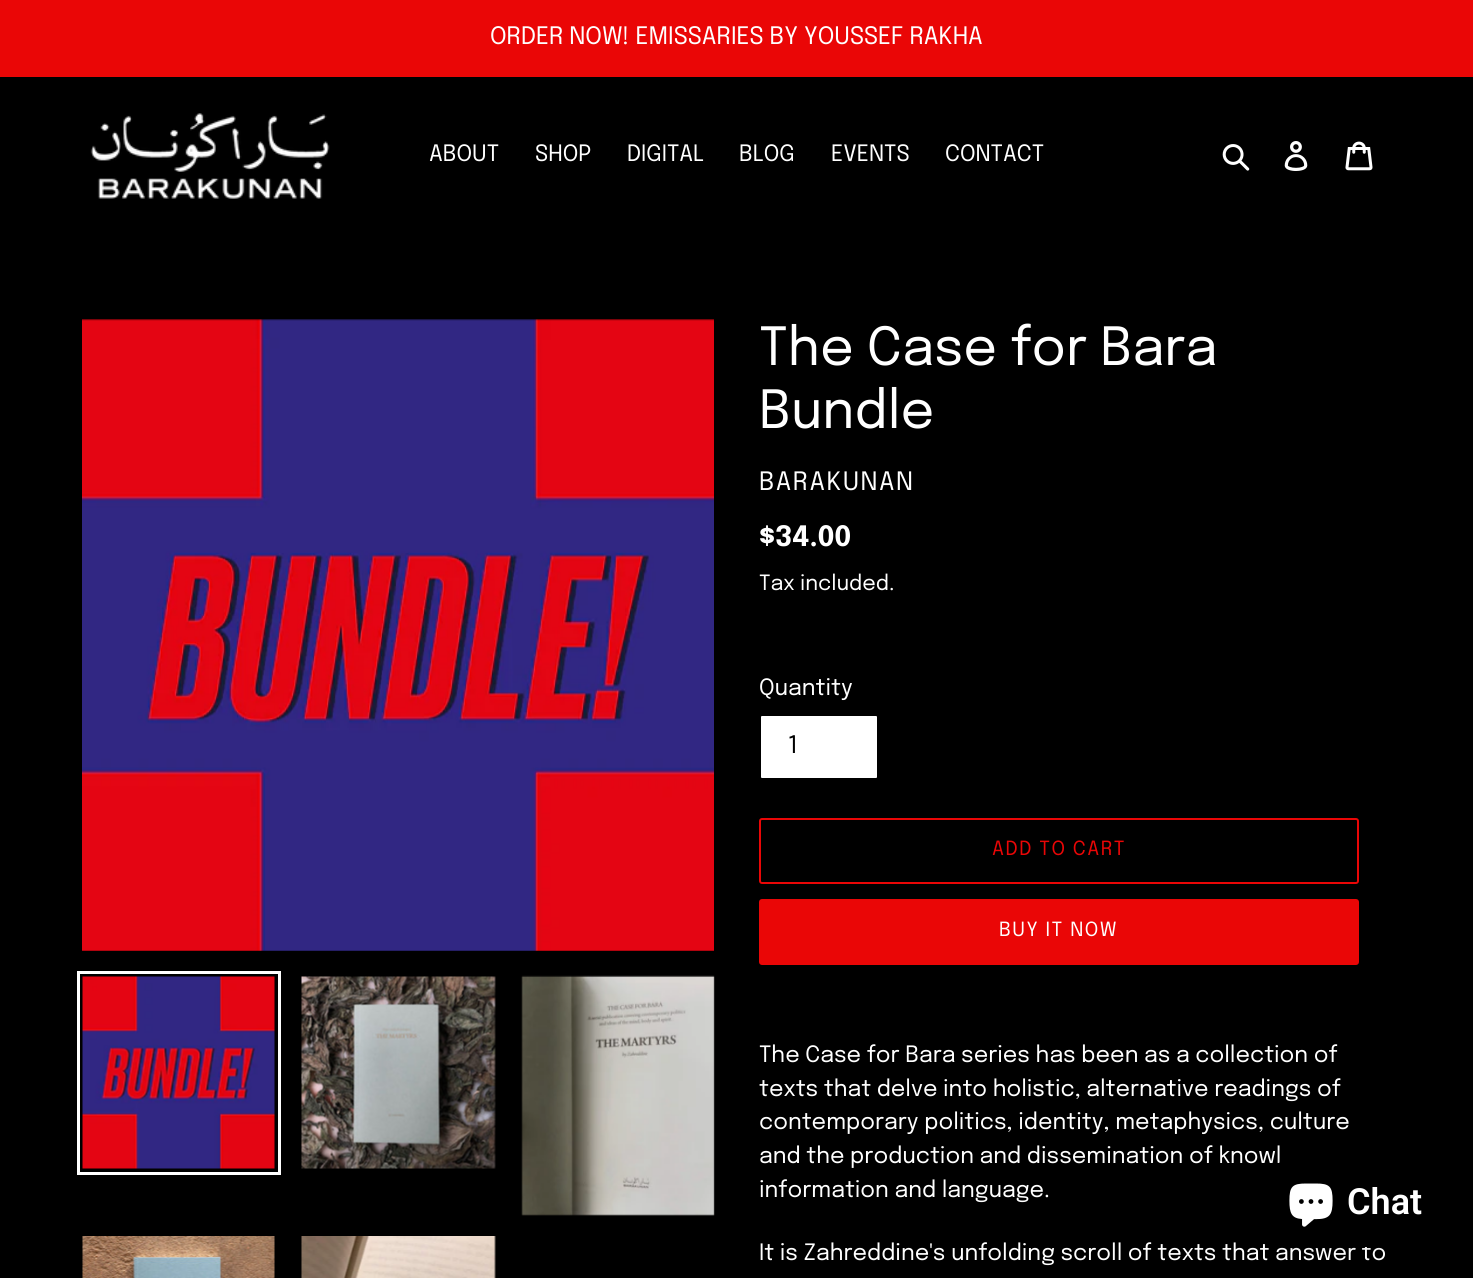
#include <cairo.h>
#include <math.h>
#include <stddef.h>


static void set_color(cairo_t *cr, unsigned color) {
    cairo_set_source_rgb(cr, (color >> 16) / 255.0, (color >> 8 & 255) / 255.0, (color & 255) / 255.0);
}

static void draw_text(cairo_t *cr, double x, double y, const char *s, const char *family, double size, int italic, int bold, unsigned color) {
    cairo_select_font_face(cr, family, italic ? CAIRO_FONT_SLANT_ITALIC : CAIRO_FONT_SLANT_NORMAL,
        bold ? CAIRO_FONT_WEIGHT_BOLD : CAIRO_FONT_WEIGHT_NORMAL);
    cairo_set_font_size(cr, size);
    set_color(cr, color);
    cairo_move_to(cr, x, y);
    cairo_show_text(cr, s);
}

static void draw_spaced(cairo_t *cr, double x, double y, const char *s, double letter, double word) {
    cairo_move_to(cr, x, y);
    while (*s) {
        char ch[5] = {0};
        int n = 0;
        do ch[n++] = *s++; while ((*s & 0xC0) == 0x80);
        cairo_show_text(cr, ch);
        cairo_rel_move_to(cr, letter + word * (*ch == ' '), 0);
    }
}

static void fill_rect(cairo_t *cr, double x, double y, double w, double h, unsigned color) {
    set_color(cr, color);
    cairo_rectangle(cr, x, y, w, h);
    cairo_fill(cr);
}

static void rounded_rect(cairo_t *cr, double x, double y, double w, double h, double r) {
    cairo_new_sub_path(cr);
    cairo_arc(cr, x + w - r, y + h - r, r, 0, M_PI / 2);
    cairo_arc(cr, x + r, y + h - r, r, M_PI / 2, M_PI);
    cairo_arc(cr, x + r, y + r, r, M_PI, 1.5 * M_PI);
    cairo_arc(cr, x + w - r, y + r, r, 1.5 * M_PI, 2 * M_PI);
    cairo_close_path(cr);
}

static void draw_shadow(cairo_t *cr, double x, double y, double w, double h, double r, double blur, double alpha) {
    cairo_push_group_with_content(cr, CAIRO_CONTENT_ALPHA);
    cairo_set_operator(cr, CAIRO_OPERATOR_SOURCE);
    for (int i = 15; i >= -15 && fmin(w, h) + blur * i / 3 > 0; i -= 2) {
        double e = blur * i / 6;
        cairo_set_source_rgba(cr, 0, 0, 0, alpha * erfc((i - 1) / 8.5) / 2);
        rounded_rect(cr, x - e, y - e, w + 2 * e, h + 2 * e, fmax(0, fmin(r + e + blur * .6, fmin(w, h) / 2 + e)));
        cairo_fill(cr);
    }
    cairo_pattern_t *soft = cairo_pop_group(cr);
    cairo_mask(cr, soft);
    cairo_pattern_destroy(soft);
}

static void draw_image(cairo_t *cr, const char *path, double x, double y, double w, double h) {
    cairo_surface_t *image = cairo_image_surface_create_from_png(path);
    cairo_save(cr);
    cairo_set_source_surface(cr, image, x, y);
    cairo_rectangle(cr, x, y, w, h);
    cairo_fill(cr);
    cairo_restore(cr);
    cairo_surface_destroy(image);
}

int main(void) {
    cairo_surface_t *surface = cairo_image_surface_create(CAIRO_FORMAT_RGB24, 1473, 1278);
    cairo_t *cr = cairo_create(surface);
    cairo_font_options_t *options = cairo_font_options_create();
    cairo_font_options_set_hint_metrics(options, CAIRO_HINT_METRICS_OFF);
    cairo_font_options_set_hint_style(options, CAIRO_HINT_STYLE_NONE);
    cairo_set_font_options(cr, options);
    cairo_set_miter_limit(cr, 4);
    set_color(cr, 0x000000);
    cairo_paint(cr);
    fill_rect(cr, 0, 0, 1473, 77, 0xEA0606);
    draw_text(cr, 490, 44, "ORDER NOW! EMISSARIES BY YOUSSEF RAKHA", "Epilogue", 24, 0, 0, 0xFFFFFF);
    draw_image(cr, "assets/img1.png", 90, 113, 240, 86);
    draw_text(cr, 429, 161, "ABOUT", "Epilogue", 22.5, 0, 0, 0xFFFFFF);
    draw_text(cr, 535, 161, "SHOP", "Epilogue", 22.5, 0, 0, 0xFFFFFF);
    draw_text(cr, 627, 161, "DIGITAL", "Epilogue", 22.5, 0, 0, 0xFFFFFF);
    draw_text(cr, 739, 161, "BLOG", "Epilogue", 22.5, 0, 0, 0xFFFFFF);
    draw_text(cr, 831, 161, "EVENTS", "Epilogue", 22.5, 0, 0, 0xFFFFFF);
    draw_text(cr, 945, 161, "CONTACT", "Epilogue", 22.5, 0, 0, 0xFFFFFF);
    draw_image(cr, "assets/img2.png", 1222, 144, 28, 27);
    draw_image(cr, "assets/img3.png", 1284, 141, 24, 30);
    draw_image(cr, "assets/img4.png", 1345, 141, 28, 30);
    draw_image(cr, "assets/img5.png", 82, 319, 632, 632);
    cairo_rectangle(cr, 78.5, 972.5, 201, 201);
    cairo_set_line_width(cr, 3);
    cairo_stroke(cr);
    draw_image(cr, "assets/img6.png", 82, 976, 193, 193);
    draw_image(cr, "assets/img7.png", 301, 976, 195, 193);
    draw_image(cr, "assets/img8.png", 521, 975, 194, 241);
    draw_image(cr, "assets/img9.png", 82, 1236, 193, 42);
    draw_image(cr, "assets/img10.png", 301, 1236, 195, 42);
    draw_text(cr, 759, 365, "The Case for Bara", "Epilogue", 52.5, 0, 0, 0xFFFFFF);
    draw_text(cr, 759, 428, "Bundle", "Epilogue", 52.5, 0, 0, 0xFFFFFF);
    cairo_set_font_size(cr, 25.25);
    draw_spaced(cr, 759, 490, "BARAKUNAN", 1.5, 0);
    draw_text(cr, 759, 546, "$34.00", "Epilogue", 28, 0, 1, 0xFFFFFF);
    draw_text(cr, 759, 590, "Tax included.", "Epilogue", 21, 0, 0, 0xFFFFFF);
    draw_text(cr, 759, 695, "Quantity", "Epilogue", 22.5, 0, 0, 0xFFFFFF);
    rounded_rect(cr, 760, 715, 118, 64, 2);
    cairo_fill_preserve(cr);
    set_color(cr, 0x000000);
    cairo_set_line_width(cr, 2);
    cairo_stroke(cr);
    draw_text(cr, 788, 753, "1", "Epilogue", 24, 0, 0, 0x000000);
    rounded_rect(cr, 760, 819, 598, 64, 2);
    set_color(cr, 0xEA0606);
    cairo_stroke(cr);
    cairo_set_font_size(cr, 19.5);
    draw_spaced(cr, 992, 855, "ADD TO CART", 1.5, 0);
    rounded_rect(cr, 759, 899, 600, 66, 3);
    cairo_fill(cr);
    set_color(cr, 0xFFFFFF);
    draw_spaced(cr, 999, 936, "BUY IT NOW", 1.5, 0);
    draw_text(cr, 759, 1062, "The Case for Bara series has been as a collection of", "Epilogue", 22.5, 0, 0, 0xFFFFFF);
    draw_text(cr, 759, 1096, "texts that delve into holistic, alternative readings of", "Epilogue", 22.5, 0, 0, 0xFFFFFF);
    draw_text(cr, 759, 1129, "contemporary politics, identity, metaphysics, culture", "Epilogue", 22.5, 0, 0, 0xFFFFFF);
    draw_text(cr, 759, 1163, "and the production and dissemination of knowl", "Epilogue", 22.5, 0, 0, 0xFFFFFF);
    draw_text(cr, 759, 1197, "information and language.", "Epilogue", 22.5, 0, 0, 0xFFFFFF);
    draw_text(cr, 759, 1260, "It is Zahreddine's unfolding scroll of texts that answer to", "Epilogue", 22.5, 0, 0, 0xFFFFFF);
    set_color(cr, 0x000000);
    draw_shadow(cr, 1271, 1157, 169, 90, 24, 4, 0.15);
    set_color(cr, 0x000000);
    rounded_rect(cr, 1271, 1157, 169, 90, 24);
    cairo_fill(cr);
    draw_image(cr, "assets/img11.png", 1289, 1183, 44, 44);
    draw_text(cr, 1347, 1214, "Chat", "Roboto SemiBold", 36, 0, 0, 0xFFFFFF);
    cairo_surface_write_to_png(surface, "output.png");
    cairo_font_options_destroy(options);
    cairo_destroy(cr);
    cairo_surface_destroy(surface);
    return 0;
}
